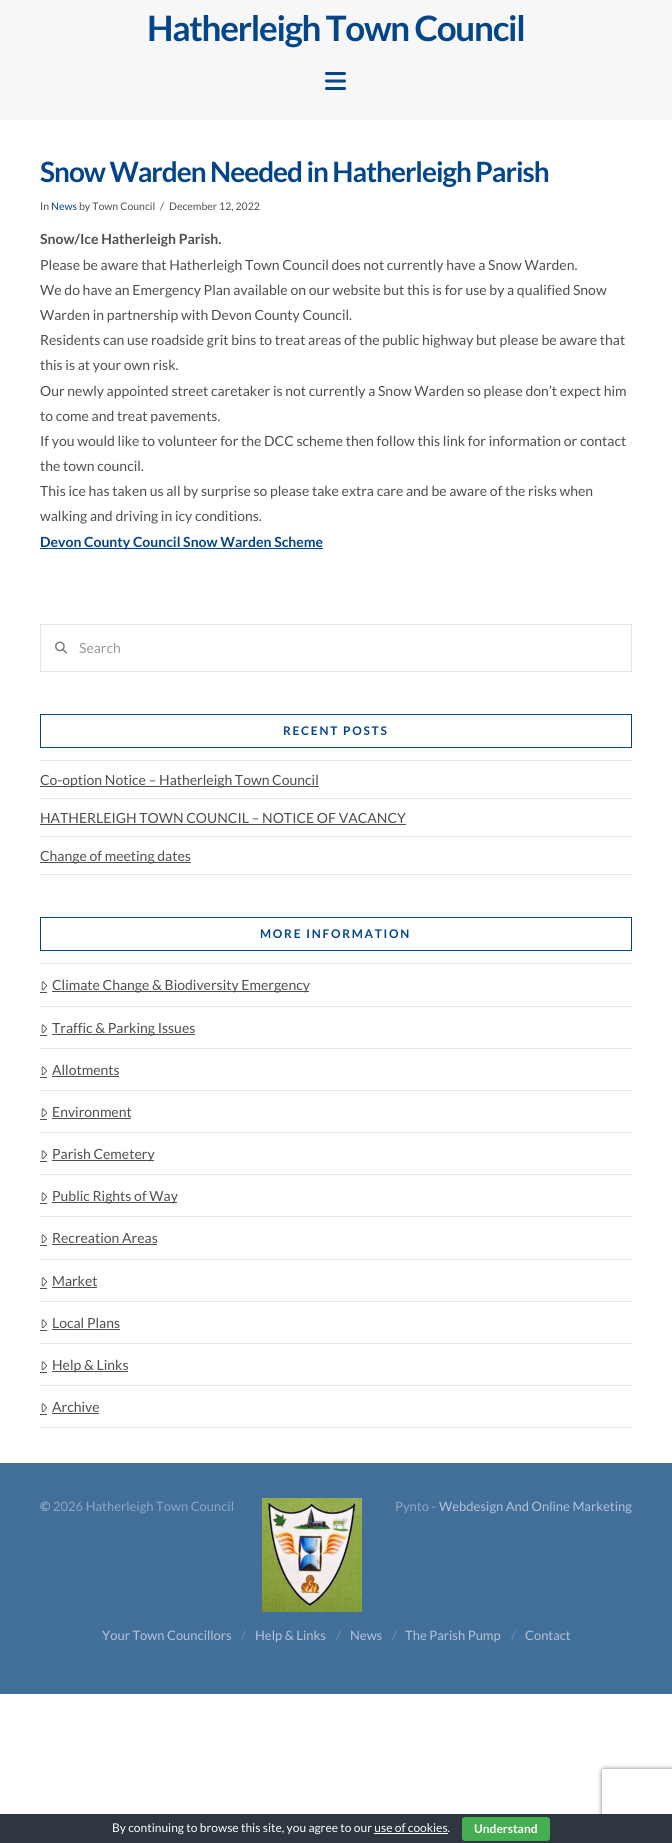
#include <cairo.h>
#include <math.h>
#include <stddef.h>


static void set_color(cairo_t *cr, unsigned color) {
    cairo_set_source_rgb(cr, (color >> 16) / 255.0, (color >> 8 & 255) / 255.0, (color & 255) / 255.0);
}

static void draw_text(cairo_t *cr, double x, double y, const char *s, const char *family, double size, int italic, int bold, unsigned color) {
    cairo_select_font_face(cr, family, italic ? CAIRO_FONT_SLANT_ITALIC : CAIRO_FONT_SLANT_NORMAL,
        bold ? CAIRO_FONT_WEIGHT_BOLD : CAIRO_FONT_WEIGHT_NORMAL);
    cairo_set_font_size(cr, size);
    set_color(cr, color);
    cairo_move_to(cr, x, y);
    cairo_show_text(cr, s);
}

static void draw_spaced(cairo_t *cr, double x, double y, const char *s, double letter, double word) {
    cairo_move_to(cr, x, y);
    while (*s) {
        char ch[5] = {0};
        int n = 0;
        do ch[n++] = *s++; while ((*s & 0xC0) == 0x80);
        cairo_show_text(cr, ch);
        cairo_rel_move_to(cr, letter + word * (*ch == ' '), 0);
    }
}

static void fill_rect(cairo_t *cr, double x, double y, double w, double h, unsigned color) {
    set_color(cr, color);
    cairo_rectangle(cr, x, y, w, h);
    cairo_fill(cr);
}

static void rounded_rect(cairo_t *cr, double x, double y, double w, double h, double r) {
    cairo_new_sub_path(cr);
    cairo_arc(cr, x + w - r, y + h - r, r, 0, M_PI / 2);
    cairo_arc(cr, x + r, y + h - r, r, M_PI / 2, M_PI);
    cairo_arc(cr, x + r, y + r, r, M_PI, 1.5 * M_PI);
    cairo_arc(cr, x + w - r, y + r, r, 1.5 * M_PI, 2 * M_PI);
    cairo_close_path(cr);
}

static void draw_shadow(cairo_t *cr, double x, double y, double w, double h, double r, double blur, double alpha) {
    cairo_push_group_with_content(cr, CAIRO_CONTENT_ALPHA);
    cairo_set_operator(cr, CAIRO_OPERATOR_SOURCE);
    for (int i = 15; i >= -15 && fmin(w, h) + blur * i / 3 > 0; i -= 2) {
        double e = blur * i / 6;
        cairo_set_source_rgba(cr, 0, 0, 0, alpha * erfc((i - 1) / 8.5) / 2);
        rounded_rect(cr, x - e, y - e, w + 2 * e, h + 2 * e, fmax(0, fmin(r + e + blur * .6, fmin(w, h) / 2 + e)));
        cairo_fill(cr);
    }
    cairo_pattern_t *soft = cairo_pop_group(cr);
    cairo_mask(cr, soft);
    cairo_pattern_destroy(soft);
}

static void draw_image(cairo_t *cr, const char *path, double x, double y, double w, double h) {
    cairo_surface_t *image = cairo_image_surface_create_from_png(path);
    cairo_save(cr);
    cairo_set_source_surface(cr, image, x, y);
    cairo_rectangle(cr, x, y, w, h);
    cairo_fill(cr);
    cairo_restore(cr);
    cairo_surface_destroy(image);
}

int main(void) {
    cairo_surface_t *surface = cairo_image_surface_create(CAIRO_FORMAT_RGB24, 672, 1843);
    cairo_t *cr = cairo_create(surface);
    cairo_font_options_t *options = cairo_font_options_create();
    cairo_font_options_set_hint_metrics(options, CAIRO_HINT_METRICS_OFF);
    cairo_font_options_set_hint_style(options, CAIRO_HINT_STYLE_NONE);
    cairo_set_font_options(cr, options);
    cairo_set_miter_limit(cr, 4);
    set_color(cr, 0xFFFFFF);
    cairo_paint(cr);
    fill_rect(cr, 0, 0, 672, 119, 0xF8F7F7);
    cairo_select_font_face(cr, "Lato", CAIRO_FONT_SLANT_NORMAL, CAIRO_FONT_WEIGHT_BOLD);
    cairo_set_font_size(cr, 35);
    set_color(cr, 0x024589);
    draw_spaced(cr, 147, 41, "Hatherleigh Town Council", -1.25, 0);
    fill_rect(cr, 0, 119, 672, 2, 0xFCFBFB);
    draw_image(cr, "assets/img1.png", 325, 72, 21, 18);
    cairo_set_font_size(cr, 28);
    set_color(cr, 0x024589);
    draw_spaced(cr, 40, 182, "Snow Warden Needed in Hatherleigh Parish", -1, 0);
    draw_text(cr, 40, 210, "In", "Lato", 10.5, 0, 0, 0x504E4E);
    draw_text(cr, 51, 210, "News", "Lato", 10.5, 0, 0, 0x024589);
    draw_text(cr, 79, 210, "by Town Council", "Lato", 10.5, 0, 0, 0x504E4E);
    draw_text(cr, 160, 210, "/", "Lato", 10.5, 0, 0, 0x504E4E);
    draw_text(cr, 169, 210, "December 12, 2022", "Lato", 10.5, 0, 0, 0x504E4E);
    draw_text(cr, 40, 244, "Snow/Ice Hatherleigh Parish.", "Lato", 14, 0, 1, 0x504E4E);
    draw_text(cr, 40, 270, "Please be aware that Hatherleigh Town Council does not currently have a Snow Warden.", "Lato", 14, 0, 0, 0x504E4E);
    draw_text(cr, 40, 295, "We do have an Emergency Plan available on our website but this is for use by a qualified Snow", "Lato", 14, 0, 0, 0x504E4E);
    draw_text(cr, 40, 320, "Warden in partnership with Devon County Council.", "Lato", 14, 0, 0, 0x504E4E);
    draw_text(cr, 40, 345, "Residents can use roadside grit bins to treat areas of the public highway but please be aware that", "Lato", 14, 0, 0, 0x504E4E);
    draw_text(cr, 40, 370, "this is at your own risk.", "Lato", 14, 0, 0, 0x504E4E);
    draw_text(cr, 40, 396, "Our newly appointed street caretaker is not currently a Snow Warden so please don’t expect him", "Lato", 14, 0, 0, 0x504E4E);
    draw_text(cr, 40, 421, "to come and treat pavements.", "Lato", 14, 0, 0, 0x504E4E);
    draw_text(cr, 40, 446, "If you would like to volunteer for the DCC scheme then follow this link for information or contact", "Lato", 14, 0, 0, 0x504E4E);
    draw_text(cr, 40, 471, "the town council.", "Lato", 14, 0, 0, 0x504E4E);
    draw_text(cr, 40, 496, "This ice has taken us all by surprise so please take extra care and be aware of the risks when", "Lato", 14, 0, 0, 0x504E4E);
    draw_text(cr, 40, 521, "walking and driving in icy conditions.", "Lato", 14, 0, 0, 0x504E4E);
    fill_rect(cr, 40, 548, 283, 1, 0x024589);
    draw_text(cr, 40, 547, "Devon County Council Snow Warden Scheme", "Lato", 14, 0, 1, 0x024589);
    cairo_rectangle(cr, 40.5, 624.5, 591, 47);
    set_color(cr, 0xE6E6E6);
    cairo_set_line_width(cr, 1);
    cairo_stroke(cr);
    draw_image(cr, "assets/img2.png", 55, 641, 12, 13);
    draw_text(cr, 79, 653, "Search", "Lato", 14, 0, 0, 0x999999);
    cairo_rectangle(cr, 40.5, 714.5, 591, 33);
    set_color(cr, 0x024589);
    cairo_stroke(cr);
    cairo_select_font_face(cr, "Lato", CAIRO_FONT_SLANT_NORMAL, CAIRO_FONT_WEIGHT_BOLD);
    cairo_set_font_size(cr, 11.9);
    draw_spaced(cr, 283, 735, "RECENT POSTS", 1.75, 0);
    fill_rect(cr, 40, 760, 592, 1, 0xE9E9E9);
    fill_rect(cr, 40, 786, 279, 1, 0x504E4E);
    draw_text(cr, 40, 785, "Co-option Notice – Hatherleigh Town Council", "Lato", 14, 0, 0, 0x504E4E);
    fill_rect(cr, 40, 798, 592, 1, 0xE9E9E9);
    draw_text(cr, 40, 823, "HATHERLEIGH TOWN COUNCIL – NOTICE OF VACANCY", "Lato", 14, 0, 0, 0x504E4E);
    fill_rect(cr, 40, 824, 366, 1, 0x504E4E);
    fill_rect(cr, 40, 836, 592, 1, 0xE9E9E9);
    fill_rect(cr, 40, 874, 592, 1, 0xE9E9E9);
    fill_rect(cr, 40, 862, 151, 1, 0x504E4E);
    draw_text(cr, 40, 861, "Change of meeting dates", "Lato", 14, 0, 0, 0x504E4E);
    cairo_rectangle(cr, 40.5, 917.5, 591, 33);
    set_color(cr, 0x024589);
    cairo_stroke(cr);
    cairo_select_font_face(cr, "Lato", CAIRO_FONT_SLANT_NORMAL, CAIRO_FONT_WEIGHT_BOLD);
    cairo_set_font_size(cr, 11.9);
    draw_spaced(cr, 260, 938, "MORE INFORMATION", 1.75, 0);
    fill_rect(cr, 40, 963, 592, 1, 0xE9E9E9);
    fill_rect(cr, 40, 992, 7, 1, 0x504E4E);
    draw_image(cr, "assets/img3.png", 41, 981, 6, 10);
    fill_rect(cr, 52, 991, 257, 1, 0x504E4E);
    draw_text(cr, 52, 990, "Climate Change & Biodiversity Emergency", "Lato", 14, 0, 0, 0x504E4E);
    fill_rect(cr, 40, 1006, 592, 1, 0xE9E9E9);
    fill_rect(cr, 40, 1035, 7, 1, 0x504E4E);
    draw_image(cr, "assets/img3.png", 41, 1024, 6, 10);
    fill_rect(cr, 52, 1034, 143, 1, 0x504E4E);
    draw_text(cr, 52, 1033, "Traffic & Parking Issues", "Lato", 14, 0, 0, 0x504E4E);
    fill_rect(cr, 40, 1048, 592, 1, 0xE9E9E9);
    fill_rect(cr, 40, 1077, 7, 1, 0x504E4E);
    draw_image(cr, "assets/img3.png", 41, 1066, 6, 10);
    draw_text(cr, 52, 1075, "Allotments", "Lato", 14, 0, 0, 0x504E4E);
    fill_rect(cr, 52, 1076, 67, 1, 0x504E4E);
    fill_rect(cr, 40, 1090, 592, 1, 0xE9E9E9);
    fill_rect(cr, 40, 1119, 7, 1, 0x504E4E);
    draw_image(cr, "assets/img3.png", 41, 1108, 6, 10);
    draw_text(cr, 52, 1117, "Environment", "Lato", 14, 0, 0, 0x504E4E);
    fill_rect(cr, 52, 1118, 79, 1, 0x504E4E);
    fill_rect(cr, 40, 1132, 592, 1, 0xE9E9E9);
    fill_rect(cr, 40, 1161, 7, 1, 0x504E4E);
    draw_image(cr, "assets/img3.png", 41, 1150, 6, 10);
    fill_rect(cr, 52, 1160, 102, 1, 0x504E4E);
    draw_text(cr, 52, 1159, "Parish Cemetery", "Lato", 14, 0, 0, 0x504E4E);
    fill_rect(cr, 40, 1174, 592, 1, 0xE9E9E9);
    fill_rect(cr, 40, 1203, 7, 1, 0x504E4E);
    draw_image(cr, "assets/img3.png", 41, 1192, 6, 10);
    fill_rect(cr, 52, 1202, 125, 1, 0x504E4E);
    draw_text(cr, 52, 1201, "Public Rights of Way", "Lato", 14, 0, 0, 0x504E4E);
    fill_rect(cr, 40, 1216, 592, 1, 0xE9E9E9);
    fill_rect(cr, 40, 1245, 7, 1, 0x504E4E);
    draw_image(cr, "assets/img3.png", 41, 1234, 6, 10);
    draw_text(cr, 52, 1243, "Recreation Areas", "Lato", 14, 0, 0, 0x504E4E);
    fill_rect(cr, 52, 1244, 105, 1, 0x504E4E);
    fill_rect(cr, 40, 1259, 592, 1, 0xE9E9E9);
    fill_rect(cr, 40, 1288, 7, 1, 0x504E4E);
    draw_image(cr, "assets/img3.png", 41, 1277, 6, 10);
    draw_text(cr, 52, 1286, "Market", "Lato", 14, 0, 0, 0x504E4E);
    fill_rect(cr, 52, 1287, 45, 1, 0x504E4E);
    fill_rect(cr, 40, 1301, 592, 1, 0xE9E9E9);
    fill_rect(cr, 40, 1330, 7, 1, 0x504E4E);
    draw_image(cr, "assets/img3.png", 41, 1319, 6, 10);
    draw_text(cr, 52, 1328, "Local Plans", "Lato", 14, 0, 0, 0x504E4E);
    fill_rect(cr, 52, 1329, 68, 1, 0x504E4E);
    fill_rect(cr, 40, 1343, 592, 1, 0xE9E9E9);
    fill_rect(cr, 40, 1372, 7, 1, 0x504E4E);
    draw_image(cr, "assets/img3.png", 41, 1361, 6, 10);
    fill_rect(cr, 52, 1371, 76, 1, 0x504E4E);
    draw_text(cr, 52, 1370, "Help & Links", "Lato", 14, 0, 0, 0x504E4E);
    fill_rect(cr, 40, 1385, 592, 1, 0xE9E9E9);
    fill_rect(cr, 40, 1427, 592, 1, 0xE9E9E9);
    fill_rect(cr, 40, 1414, 7, 1, 0x504E4E);
    draw_image(cr, "assets/img3.png", 41, 1403, 6, 10);
    draw_text(cr, 52, 1412, "Archive", "Lato", 14, 0, 0, 0x504E4E);
    fill_rect(cr, 52, 1413, 47, 1, 0x504E4E);
    fill_rect(cr, 0, 1463, 672, 231, 0x426E9A);
    draw_text(cr, 40, 1511, "©", "Lato", 13, 0, 0, 0xB3C5D7);
    draw_text(cr, 53, 1511, "2026 Hatherleigh Town Council", "Lato", 13, 0, 0, 0x8EA8C2);
    draw_image(cr, "assets/img4.png", 262, 1498, 100, 114);
    draw_text(cr, 395, 1511, "Pynto -", "Lato", 13, 0, 0, 0x8EA8C2);
    draw_text(cr, 439, 1511, "Webdesign And Online Marketing", "Lato", 13, 0, 0, 0xB3C5D7);
    draw_text(cr, 102, 1640, "Your Town Councillors", "Lato", 13, 0, 0, 0xB3C5D7);
    draw_text(cr, 241, 1640, "/", "Lato", 13, 0, 0, 0x7192B3);
    draw_text(cr, 255, 1640, "Help & Links", "Lato", 13, 0, 0, 0xB3C5D7);
    draw_text(cr, 336, 1640, "/", "Lato", 13, 0, 0, 0x7192B3);
    draw_text(cr, 350, 1640, "News", "Lato", 13, 0, 0, 0xB3C5D7);
    draw_text(cr, 392, 1640, "/", "Lato", 13, 0, 0, 0x7192B3);
    draw_text(cr, 405, 1640, "The Parish Pump", "Lato", 13, 0, 0, 0xB3C5D7);
    draw_text(cr, 511, 1640, "/", "Lato", 13, 0, 0, 0x7192B3);
    draw_text(cr, 525, 1640, "Contact", "Lato", 13, 0, 0, 0xB3C5D7);
    cairo_save(cr);
    cairo_set_fill_rule(cr, CAIRO_FILL_RULE_EVEN_ODD);
    cairo_new_path(cr);
    cairo_move_to(cr, 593, 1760);
    cairo_line_to(cr, 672, 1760);
    cairo_line_to(cr, 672, 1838);
    cairo_line_to(cr, 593, 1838);
    cairo_close_path(cr);
    cairo_move_to(cr, 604, 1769);
    cairo_line_to(cr, 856, 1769);
    cairo_curve_to(cr, 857, 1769, 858, 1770, 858, 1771);
    cairo_line_to(cr, 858, 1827);
    cairo_curve_to(cr, 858, 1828, 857, 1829, 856, 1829);
    cairo_line_to(cr, 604, 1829);
    cairo_curve_to(cr, 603, 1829, 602, 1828, 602, 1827);
    cairo_line_to(cr, 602, 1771);
    cairo_curve_to(cr, 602, 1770, 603, 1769, 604, 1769);
    cairo_close_path(cr);
    cairo_clip(cr);
    set_color(cr, 0x808080);
    draw_shadow(cr, 602, 1769, 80, 60, 2, 2.5, 1);
    cairo_restore(cr);
    fill_rect(cr, 0, 1814, 672, 29, 0x2E363F);
    draw_text(cr, 112, 1832, "By continuing to browse this site, you agree to our use of cookies.", "Lato", 12, 0, 0, 0xFFFFFF);
    set_color(cr, 0x45AE52);
    rounded_rect(cr, 462, 1817, 88, 24, 3);
    cairo_fill(cr);
    draw_text(cr, 474, 1833, "Understand", "Lato", 12, 0, 1, 0xFFFFFF);
    fill_rect(cr, 374, 1833, 74, 1, 0xFFFFFF);
    cairo_surface_write_to_png(surface, "output.png");
    cairo_font_options_destroy(options);
    cairo_destroy(cr);
    cairo_surface_destroy(surface);
    return 0;
}
